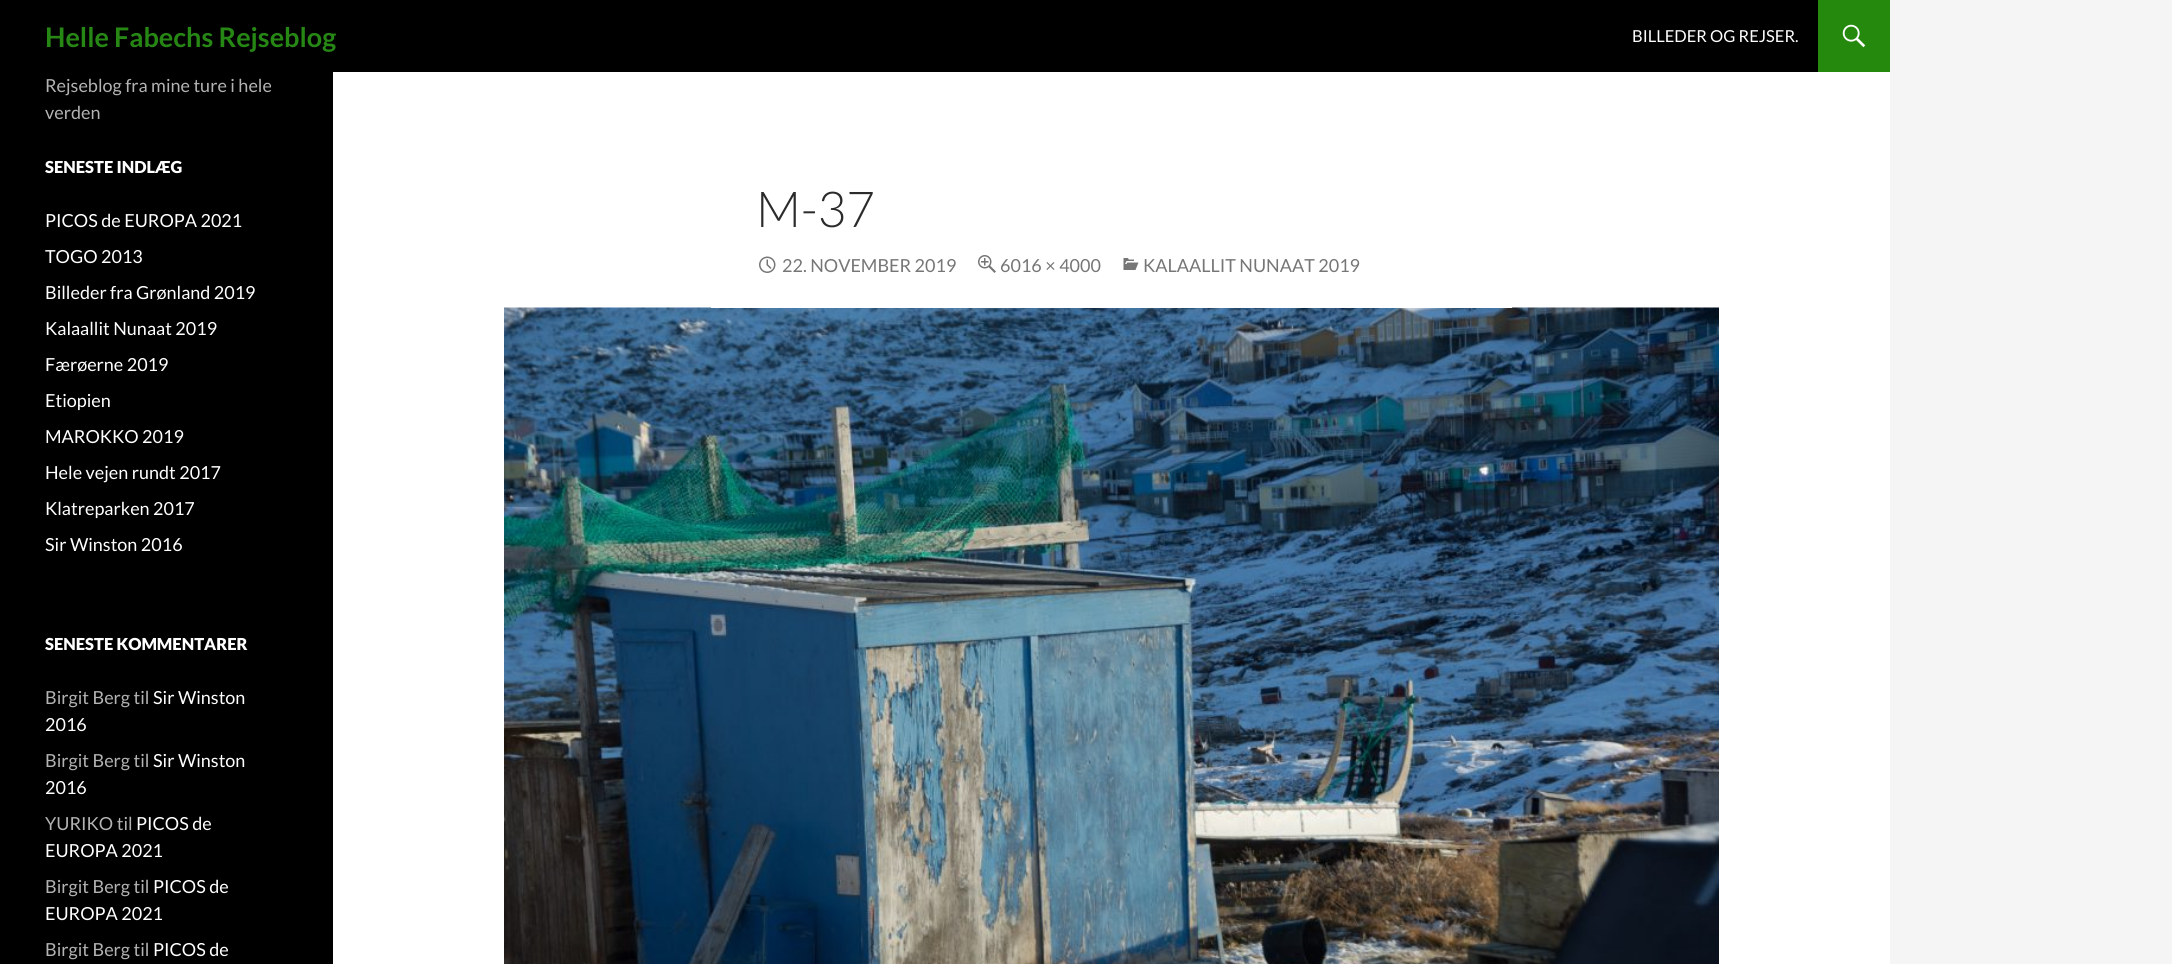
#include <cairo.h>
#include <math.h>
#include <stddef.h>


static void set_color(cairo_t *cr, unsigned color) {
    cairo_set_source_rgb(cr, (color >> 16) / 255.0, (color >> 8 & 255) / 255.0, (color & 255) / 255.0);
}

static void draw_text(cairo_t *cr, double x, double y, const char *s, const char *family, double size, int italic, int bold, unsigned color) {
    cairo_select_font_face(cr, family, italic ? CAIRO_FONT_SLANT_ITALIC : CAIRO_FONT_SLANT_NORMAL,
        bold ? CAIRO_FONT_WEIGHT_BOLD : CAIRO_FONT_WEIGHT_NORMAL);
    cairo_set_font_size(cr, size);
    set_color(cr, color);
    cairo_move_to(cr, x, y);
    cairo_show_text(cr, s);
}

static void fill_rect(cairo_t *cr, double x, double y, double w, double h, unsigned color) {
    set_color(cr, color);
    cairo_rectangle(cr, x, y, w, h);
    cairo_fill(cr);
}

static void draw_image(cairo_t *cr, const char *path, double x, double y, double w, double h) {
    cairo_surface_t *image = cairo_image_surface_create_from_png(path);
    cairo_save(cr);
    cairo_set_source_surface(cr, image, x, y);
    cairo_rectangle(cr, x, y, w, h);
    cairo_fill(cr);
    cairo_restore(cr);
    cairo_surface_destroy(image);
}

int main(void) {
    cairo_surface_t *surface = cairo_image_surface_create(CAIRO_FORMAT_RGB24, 2172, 964);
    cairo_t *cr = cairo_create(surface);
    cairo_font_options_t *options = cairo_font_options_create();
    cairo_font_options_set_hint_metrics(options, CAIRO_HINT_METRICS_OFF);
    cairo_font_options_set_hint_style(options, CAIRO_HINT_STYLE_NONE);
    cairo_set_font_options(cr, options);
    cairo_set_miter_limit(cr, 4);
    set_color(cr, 0xF5F5F5);
    cairo_paint(cr);
    fill_rect(cr, 333, 72, 1557, 892, 0xFFFFFF);
    fill_rect(cr, 0, 0, 1818, 72, 0x000000);
    draw_text(cr, 45, 47, "Helle Fabechs Rejseblog", "Lato", 27, 0, 1, 0x268715);
    draw_text(cr, 1632, 42, "BILLEDER OG REJSER.", "Lato", 16.5, 0, 0, 0xFFFFFF);
    fill_rect(cr, 1818, 0, 72, 72, 0x24890D);
    draw_image(cr, "assets/img1.png", 1842, 24, 24, 24);
    fill_rect(cr, 0, 72, 333, 892, 0x000000);
    draw_text(cr, 45, 92, "Rejseblog fra mine ture i hele", "Lato", 18, 0, 0, 0xB3B3B3);
    draw_text(cr, 45, 119, "verden", "Lato", 18, 0, 0, 0xB3B3B3);
    draw_text(cr, 45, 173, "SENESTE INDLÆG", "Lato Black", 16.5, 0, 0, 0xFFFFFF);
    draw_text(cr, 45, 227, "PICOS de EUROPA 2021", "Lato", 18, 0, 0, 0xFFFFFF);
    draw_text(cr, 45, 263, "TOGO 2013", "Lato", 18, 0, 0, 0xFFFFFF);
    draw_text(cr, 45, 299, "Billeder fra Grønland 2019", "Lato", 18, 0, 0, 0xFFFFFF);
    draw_text(cr, 45, 335, "Kalaallit Nunaat 2019", "Lato", 18, 0, 0, 0xFFFFFF);
    draw_text(cr, 45, 371, "Færøerne 2019", "Lato", 18, 0, 0, 0xFFFFFF);
    draw_text(cr, 45, 407, "Etiopien", "Lato", 18, 0, 0, 0xFFFFFF);
    draw_text(cr, 45, 443, "MAROKKO 2019", "Lato", 18, 0, 0, 0xFFFFFF);
    draw_text(cr, 45, 479, "Hele vejen rundt 2017", "Lato", 18, 0, 0, 0xFFFFFF);
    draw_text(cr, 45, 515, "Klatreparken 2017", "Lato", 18, 0, 0, 0xFFFFFF);
    draw_text(cr, 45, 551, "Sir Winston 2016", "Lato", 18, 0, 0, 0xFFFFFF);
    draw_text(cr, 45, 650, "SENESTE KOMMENTARER", "Lato Black", 16.5, 0, 0, 0xFFFFFF);
    draw_text(cr, 45, 704, "Birgit Berg til", "Lato", 18, 0, 0, 0xB3B3B3);
    draw_text(cr, 153, 704, "Sir Winston", "Lato", 18, 0, 0, 0xFFFFFF);
    draw_text(cr, 45, 731, "2016", "Lato", 18, 0, 0, 0xFFFFFF);
    draw_text(cr, 45, 767, "Birgit Berg til", "Lato", 18, 0, 0, 0xB3B3B3);
    draw_text(cr, 153, 767, "Sir Winston", "Lato", 18, 0, 0, 0xFFFFFF);
    draw_text(cr, 45, 794, "2016", "Lato", 18, 0, 0, 0xFFFFFF);
    draw_text(cr, 45, 830, "YURIKO til", "Lato", 18, 0, 0, 0xB3B3B3);
    draw_text(cr, 136, 830, "PICOS de", "Lato", 18, 0, 0, 0xFFFFFF);
    draw_text(cr, 45, 857, "EUROPA 2021", "Lato", 18, 0, 0, 0xFFFFFF);
    draw_text(cr, 45, 893, "Birgit Berg til", "Lato", 18, 0, 0, 0xB3B3B3);
    draw_text(cr, 153, 893, "PICOS de", "Lato", 18, 0, 0, 0xFFFFFF);
    draw_text(cr, 45, 920, "EUROPA 2021", "Lato", 18, 0, 0, 0xFFFFFF);
    draw_text(cr, 45, 956, "Birgit Berg til", "Lato", 18, 0, 0, 0xB3B3B3);
    draw_text(cr, 153, 956, "PICOS de", "Lato", 18, 0, 0, 0xFFFFFF);
    draw_image(cr, "assets/img5.png", 504, 307, 1215, 657);
    fill_rect(cr, 711, 307, 801, 1, 0xFFFFFF);
    draw_text(cr, 756, 227, "M-37", "Lato Light", 49.5, 0, 0, 0x2B2B2B);
    draw_image(cr, "assets/img2.png", 759, 256, 17, 17);
    draw_text(cr, 782, 272, "22. NOVEMBER 2019", "Lato", 18, 0, 0, 0x767676);
    draw_image(cr, "assets/img3.png", 978, 255, 18, 18);
    draw_text(cr, 1000, 272, "6016 × 4000", "Lato", 18, 0, 0, 0x767676);
    draw_image(cr, "assets/img4.png", 1123, 258, 16, 12);
    draw_text(cr, 1143, 272, "KALAALLIT NUNAAT 2019", "Lato", 18, 0, 0, 0x767676);
    cairo_surface_write_to_png(surface, "output.png");
    cairo_font_options_destroy(options);
    cairo_destroy(cr);
    cairo_surface_destroy(surface);
    return 0;
}
